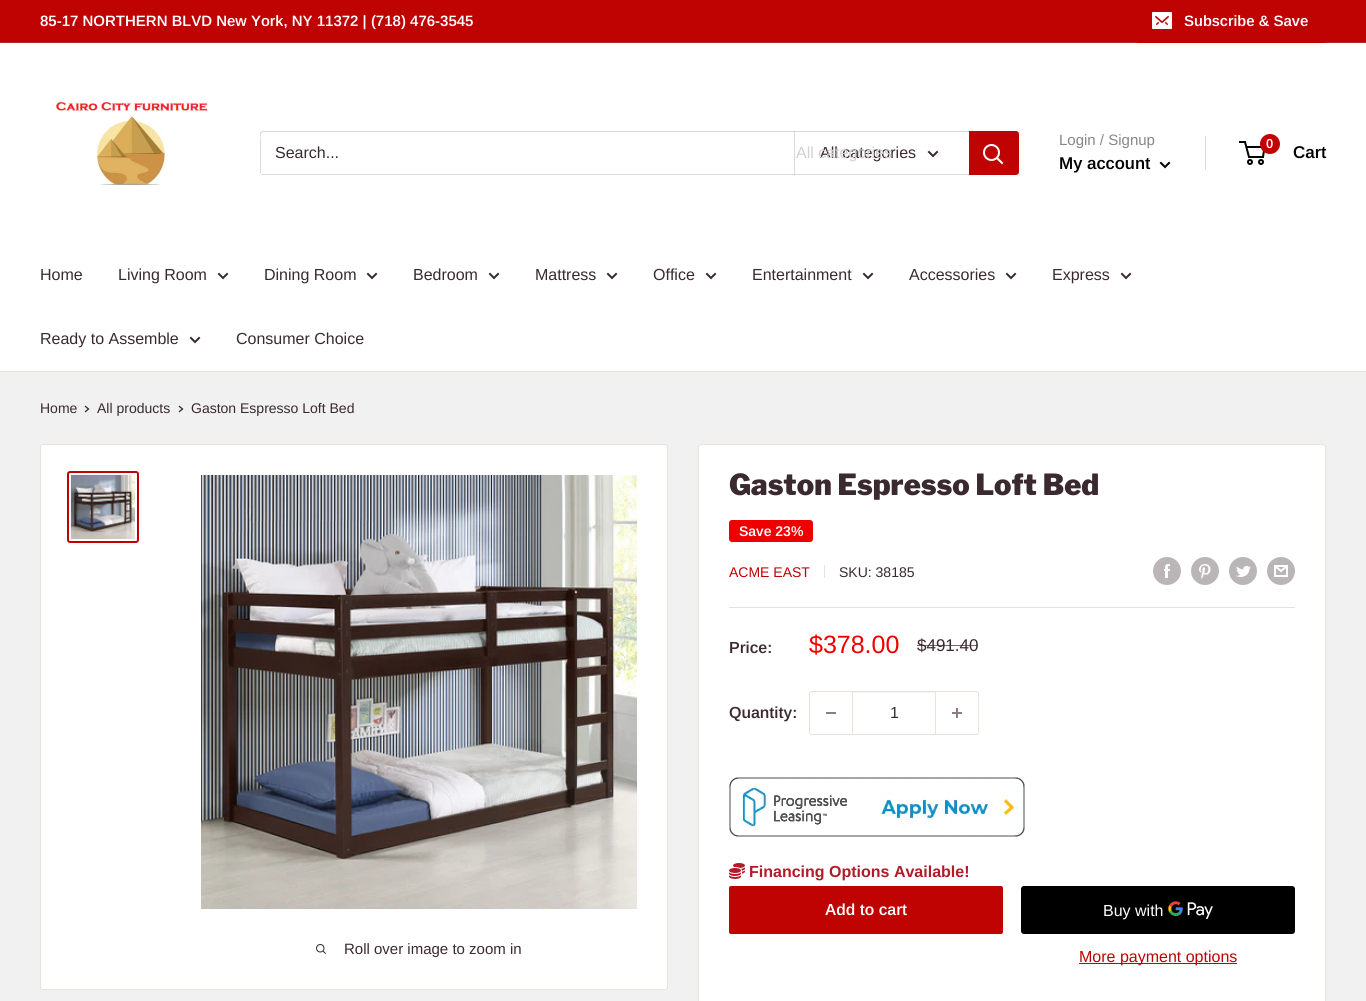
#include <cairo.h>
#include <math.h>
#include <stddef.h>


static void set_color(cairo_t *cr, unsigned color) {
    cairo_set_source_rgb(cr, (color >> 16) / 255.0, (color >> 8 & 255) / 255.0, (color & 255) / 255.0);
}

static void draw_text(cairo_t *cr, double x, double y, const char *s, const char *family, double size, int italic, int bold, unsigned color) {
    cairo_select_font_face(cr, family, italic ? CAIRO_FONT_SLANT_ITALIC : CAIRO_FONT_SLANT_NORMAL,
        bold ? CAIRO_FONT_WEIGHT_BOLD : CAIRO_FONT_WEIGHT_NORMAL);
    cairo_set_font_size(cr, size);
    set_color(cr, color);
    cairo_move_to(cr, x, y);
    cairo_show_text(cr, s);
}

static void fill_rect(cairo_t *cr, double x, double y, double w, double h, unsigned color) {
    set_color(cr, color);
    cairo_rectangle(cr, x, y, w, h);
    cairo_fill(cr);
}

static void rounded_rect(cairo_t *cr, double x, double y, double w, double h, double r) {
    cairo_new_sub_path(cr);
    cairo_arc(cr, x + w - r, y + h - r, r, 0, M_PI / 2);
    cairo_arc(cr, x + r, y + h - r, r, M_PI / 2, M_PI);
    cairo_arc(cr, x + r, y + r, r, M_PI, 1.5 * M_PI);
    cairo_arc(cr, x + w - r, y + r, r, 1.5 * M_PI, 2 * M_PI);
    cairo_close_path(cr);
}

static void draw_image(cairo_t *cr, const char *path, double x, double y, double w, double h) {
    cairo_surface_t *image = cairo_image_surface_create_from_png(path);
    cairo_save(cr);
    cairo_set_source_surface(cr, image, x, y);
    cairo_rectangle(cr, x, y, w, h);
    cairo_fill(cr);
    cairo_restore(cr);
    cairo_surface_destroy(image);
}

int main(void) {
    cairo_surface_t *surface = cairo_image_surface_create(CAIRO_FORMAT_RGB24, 1366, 1001);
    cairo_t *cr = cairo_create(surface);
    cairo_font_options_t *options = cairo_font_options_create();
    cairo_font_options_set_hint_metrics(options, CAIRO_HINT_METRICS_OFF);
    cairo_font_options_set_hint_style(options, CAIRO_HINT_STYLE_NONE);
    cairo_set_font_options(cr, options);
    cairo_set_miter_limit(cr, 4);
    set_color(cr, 0xF1F1F1);
    cairo_paint(cr);
    fill_rect(cr, 0, 0, 1366, 42, 0xBF0202);
    fill_rect(cr, 0, 42, 1366, 1, 0xAE2A2A);
    draw_text(cr, 40, 26, "85-17 NORTHERN BLVD New York, NY 11372 | (718) 476-3545", "Arimo SemiBold", 15, 0, 0, 0xFFFFFF);
    fill_rect(cr, 1137, 42, 189, 1, 0xBF0202);
    draw_image(cr, "assets/img1.png", 1152, 12, 20, 17);
    draw_text(cr, 1184, 26, "Subscribe & Save", "Arimo SemiBold", 15, 0, 0, 0xFFFFFF);
    fill_rect(cr, 0, 43, 1366, 328, 0xFFFFFF);
    draw_image(cr, "assets/img2.png", 55, 99, 153, 88);
    set_color(cr, 0xDBDBDB);
    cairo_new_path(cr);
    cairo_move_to(cr, 261, 174);
    cairo_curve_to(cr, 261, 175, 262, 175, 263, 175);
    cairo_line_to(cr, 1016, 175);
    cairo_curve_to(cr, 1018, 175, 1019, 174, 1019, 172);
    cairo_line_to(cr, 1019, 134);
    cairo_curve_to(cr, 1019, 133, 1019, 132, 1018, 132);
    cairo_line_to(cr, 1018, 165);
    cairo_curve_to(cr, 1018, 167, 1020, 174, 1015, 174);
    cairo_close_path(cr);
    cairo_fill(cr);
    cairo_new_path(cr);
    cairo_move_to(cr, 264, 132);
    cairo_line_to(cr, 1018, 132);
    cairo_curve_to(cr, 1018, 131, 1017, 131, 1016, 131);
    cairo_line_to(cr, 263, 131);
    cairo_curve_to(cr, 261, 131, 260, 132, 260, 134);
    cairo_line_to(cr, 260, 172);
    cairo_curve_to(cr, 260, 173, 260, 174, 261, 174);
    cairo_line_to(cr, 261, 141);
    cairo_curve_to(cr, 261, 139, 259, 132, 264, 132);
    cairo_close_path(cr);
    cairo_fill(cr);
    draw_text(cr, 275, 158, "Search...", "Arimo", 16, 0, 0, 0x3A2A2F);
    cairo_set_source_rgba(cr, 0.529, 0.529, 0.529, 0.3);
    cairo_rectangle(cr, 794, 131, 1, 44);
    cairo_fill(cr);
    draw_text(cr, 820, 158, "All categories", "Arimo", 16, 0, 0, 0x3A2A2F);
    draw_text(cr, 796, 158, "All categories", "Arimo", 16, 0, 0, 0xD3D0D1);
    cairo_new_path(cr);
    cairo_move_to(cr, 937, 152);
    cairo_line_to(cr, 933, 156);
    cairo_line_to(cr, 929, 152);
    set_color(cr, 0x3A2A2F);
    cairo_set_line_cap(cr, CAIRO_LINE_CAP_SQUARE);
    cairo_stroke(cr);
    set_color(cr, 0xBF0202);
    cairo_new_path(cr);
    cairo_move_to(cr, 969, 131);
    cairo_line_to(cr, 1016, 131);
    cairo_curve_to(cr, 1017.5, 131, 1019, 132.5, 1019, 134);
    cairo_line_to(cr, 1019, 172);
    cairo_curve_to(cr, 1019, 173.5, 1017.5, 175, 1016, 175);
    cairo_line_to(cr, 969, 175);
    cairo_close_path(cr);
    cairo_fill(cr);
    cairo_new_path(cr);
    cairo_move_to(cr, 1002, 163);
    cairo_line_to(cr, 997, 158);
    set_color(cr, 0xFFFFFF);
    cairo_stroke(cr);
    cairo_arc(cr, 991.5, 152.5, 7.5, 0, 2 * M_PI);
    cairo_set_line_cap(cr, CAIRO_LINE_CAP_BUTT);
    cairo_stroke(cr);
    draw_text(cr, 1059, 145, "Login / Signup", "Arimo", 15, 0, 0, 0x878787);
    fill_rect(cr, 1205, 136, 1, 34, 0xDBDBDB);
    draw_text(cr, 1059, 169, "My account", "Arimo SemiBold", 17, 0, 0, 0x000000);
    cairo_new_path(cr);
    cairo_move_to(cr, 1169, 163);
    cairo_line_to(cr, 1165, 167);
    cairo_line_to(cr, 1161, 163);
    cairo_set_line_cap(cr, CAIRO_LINE_CAP_SQUARE);
    cairo_stroke(cr);
    cairo_arc(cr, 1250, 162, 2, 0, 2 * M_PI);
    cairo_set_line_cap(cr, CAIRO_LINE_CAP_BUTT);
    cairo_stroke(cr);
    cairo_arc(cr, 1261, 162, 2, 0, 2 * M_PI);
    cairo_stroke(cr);
    cairo_new_path(cr);
    cairo_move_to(cr, 1246.5, 147);
    cairo_line_to(cr, 1264.5, 147);
    cairo_line_to(cr, 1263, 157);
    cairo_line_to(cr, 1249, 157);
    cairo_line_to(cr, 1245, 142);
    cairo_line_to(cr, 1239, 142);
    cairo_stroke(cr);
    set_color(cr, 0xBF0202);
    cairo_arc(cr, 1270, 144, 10, 0, 2 * M_PI);
    cairo_fill(cr);
    draw_text(cr, 1266, 148, "0", "Arimo SemiBold", 13, 0, 0, 0xFFFFFF);
    draw_text(cr, 1293, 158, "Cart", "Arimo SemiBold", 17, 0, 0, 0x000000);
    fill_rect(cr, 0, 371, 1366, 1, 0xE7E2DE);
    draw_text(cr, 40, 280, "Home", "Arimo", 16, 0, 0, 0x3A2A2F);
    draw_text(cr, 118, 280, "Living Room", "Arimo", 16, 0, 0, 0x3A2A2F);
    cairo_new_path(cr);
    cairo_move_to(cr, 227, 274);
    cairo_line_to(cr, 223, 278);
    cairo_line_to(cr, 219, 274);
    cairo_set_line_cap(cr, CAIRO_LINE_CAP_SQUARE);
    cairo_stroke(cr);
    draw_text(cr, 264, 280, "Dining Room", "Arimo", 16, 0, 0, 0x3A2A2F);
    cairo_new_path(cr);
    cairo_move_to(cr, 376, 274);
    cairo_line_to(cr, 372, 278);
    cairo_line_to(cr, 368, 274);
    cairo_stroke(cr);
    draw_text(cr, 413, 280, "Bedroom", "Arimo", 16, 0, 0, 0x3A2A2F);
    cairo_new_path(cr);
    cairo_move_to(cr, 498, 274);
    cairo_line_to(cr, 494, 278);
    cairo_line_to(cr, 490, 274);
    cairo_stroke(cr);
    draw_text(cr, 535, 280, "Mattress", "Arimo", 16, 0, 0, 0x3A2A2F);
    cairo_new_path(cr);
    cairo_move_to(cr, 616, 274);
    cairo_line_to(cr, 612, 278);
    cairo_line_to(cr, 608, 274);
    cairo_stroke(cr);
    draw_text(cr, 653, 280, "Office", "Arimo", 16, 0, 0, 0x3A2A2F);
    cairo_new_path(cr);
    cairo_move_to(cr, 715, 274);
    cairo_line_to(cr, 711, 278);
    cairo_line_to(cr, 707, 274);
    cairo_stroke(cr);
    draw_text(cr, 752, 280, "Entertainment", "Arimo", 16, 0, 0, 0x3A2A2F);
    cairo_new_path(cr);
    cairo_move_to(cr, 872, 274);
    cairo_line_to(cr, 868, 278);
    cairo_line_to(cr, 864, 274);
    cairo_stroke(cr);
    draw_text(cr, 909, 280, "Accessories", "Arimo", 16, 0, 0, 0x3A2A2F);
    cairo_new_path(cr);
    cairo_move_to(cr, 1015, 274);
    cairo_line_to(cr, 1011, 278);
    cairo_line_to(cr, 1007, 274);
    cairo_stroke(cr);
    draw_text(cr, 1052, 280, "Express", "Arimo", 16, 0, 0, 0x3A2A2F);
    cairo_new_path(cr);
    cairo_move_to(cr, 1130, 274);
    cairo_line_to(cr, 1126, 278);
    cairo_line_to(cr, 1122, 274);
    cairo_stroke(cr);
    draw_text(cr, 40, 344, "Ready to Assemble", "Arimo", 16, 0, 0, 0x3A2A2F);
    cairo_new_path(cr);
    cairo_move_to(cr, 199, 338);
    cairo_line_to(cr, 195, 342);
    cairo_line_to(cr, 191, 338);
    cairo_stroke(cr);
    draw_text(cr, 236, 344, "Consumer Choice", "Arimo", 16, 0, 0, 0x3A2A2F);
    draw_text(cr, 40, 413, "Home", "Arimo", 14, 0, 0, 0x3A2A2F);
    cairo_new_path(cr);
    cairo_move_to(cr, 85.5, 406.5);
    cairo_line_to(cr, 88.5, 409);
    cairo_line_to(cr, 85.5, 411.5);
    cairo_set_line_width(cr, 1.3);
    cairo_stroke(cr);
    draw_text(cr, 97, 413, "All products", "Arimo", 14, 0, 0, 0x3A2A2F);
    cairo_new_path(cr);
    cairo_move_to(cr, 179.5, 406.5);
    cairo_line_to(cr, 182.5, 409);
    cairo_line_to(cr, 179.5, 411.5);
    cairo_stroke(cr);
    draw_text(cr, 191, 413, "Gaston Espresso Loft Bed", "Arimo", 14, 0, 0, 0x3A2A2F);
    set_color(cr, 0xFFFFFF);
    rounded_rect(cr, 40.5, 444.5, 627, 545, 2.5);
    cairo_fill_preserve(cr);
    set_color(cr, 0xE7E2DE);
    cairo_set_line_width(cr, 1);
    cairo_set_line_cap(cr, CAIRO_LINE_CAP_BUTT);
    cairo_stroke(cr);
    rounded_rect(cr, 68, 472, 70, 70, 2);
    set_color(cr, 0xBF0202);
    cairo_set_line_width(cr, 2);
    cairo_stroke(cr);
    draw_image(cr, "assets/img3.png", 71, 475, 64, 64);
    draw_image(cr, "assets/img4.png", 201, 475, 436, 434);
    draw_image(cr, "assets/img5.png", 316, 944, 10, 10);
    draw_text(cr, 344, 954, "Roll over image to zoom in", "Arimo", 15, 0, 0, 0x3A2A2F);
    set_color(cr, 0xFFFFFF);
    rounded_rect(cr, 698.5, 444.5, 627, 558, 2.5);
    cairo_fill_preserve(cr);
    set_color(cr, 0xE7E2DE);
    cairo_set_line_width(cr, 1);
    cairo_stroke(cr);
    draw_text(cr, 729, 495, "Gaston Espresso Loft Bed", "Libre Franklin Black", 29, 0, 0, 0x3A2A2F);
    set_color(cr, 0xEE0000);
    rounded_rect(cr, 729, 520, 84, 22, 3);
    cairo_fill(cr);
    draw_text(cr, 739, 536, "Save 23%", "Arimo SemiBold", 14, 0, 0, 0xFFFFFF);
    draw_text(cr, 729, 577, "ACME EAST", "Arimo", 14, 0, 0, 0xBF0202);
    fill_rect(cr, 824, 565, 1, 13, 0xE7E2DE);
    draw_text(cr, 839, 577, "SKU: 38185", "Arimo", 14, 0, 0, 0x3A2A2F);
    draw_image(cr, "assets/img6.png", 1153, 557, 28, 28);
    draw_image(cr, "assets/img7.png", 1191, 557, 28, 28);
    draw_image(cr, "assets/img8.png", 1229, 557, 28, 28);
    draw_image(cr, "assets/img9.png", 1267, 557, 28, 28);
    fill_rect(cr, 729, 607, 566, 1, 0xE7E2DE);
    draw_text(cr, 729, 653, "Price:", "Arimo SemiBold", 16, 0, 0, 0x3A2A2F);
    draw_text(cr, 809, 653, "$378.00", "Arimo", 25, 0, 0, 0xEE0000);
    draw_text(cr, 917, 651, "$491.40", "Arimo", 17, 0, 0, 0x3A2A2F);
    cairo_set_source_rgba(cr, 0.227, 0.165, 0.184, 0.7);
    cairo_rectangle(cr, 917, 645, 61, 1);
    cairo_fill(cr);
    draw_text(cr, 729, 718, "Quantity:", "Arimo SemiBold", 16, 0, 0, 0x3A2A2F);
    rounded_rect(cr, 809.5, 691.5, 169, 43, 2.5);
    set_color(cr, 0xE7E2DE);
    cairo_stroke(cr);
    fill_rect(cr, 826, 712, 10, 2, 0x897F82);
    fill_rect(cr, 853, 692, 82, 1, 0xF5F3F2);
    fill_rect(cr, 935, 692, 1, 42, 0xE7E2DE);
    fill_rect(cr, 852, 692, 1, 42, 0xE7E2DE);
    draw_text(cr, 890, 718, "1", "Arimo", 16, 0, 0, 0x3A2A2F);
    draw_image(cr, "assets/img10.png", 952, 708, 10, 10);
    draw_image(cr, "assets/img11.png", 729, 777, 296, 60);
    draw_image(cr, "assets/img12.png", 729, 863, 16, 16);
    draw_text(cr, 749, 877, "Financing Options Available!", "Arimo", 16, 0, 1, 0xB11B2A);
    set_color(cr, 0xBF0202);
    rounded_rect(cr, 729, 886, 274, 48, 2);
    cairo_fill(cr);
    draw_text(cr, 825, 915, "Add to cart", "Arimo SemiBold", 16, 0, 0, 0xFFFFFF);
    set_color(cr, 0x000000);
    rounded_rect(cr, 1021, 886, 274, 48, 3);
    cairo_fill(cr);
    draw_text(cr, 1103, 916, "Buy with", "Arimo", 16, 0, 0, 0xFFFFFF);
    draw_image(cr, "assets/img13.png", 1168, 901, 45, 18);
    fill_rect(cr, 1079, 963, 158, 1, 0xBF0202);
    draw_text(cr, 1079, 962, "More payment options", "Arimo", 16, 0, 0, 0xBF0202);
    cairo_surface_write_to_png(surface, "output.png");
    cairo_font_options_destroy(options);
    cairo_destroy(cr);
    cairo_surface_destroy(surface);
    return 0;
}
